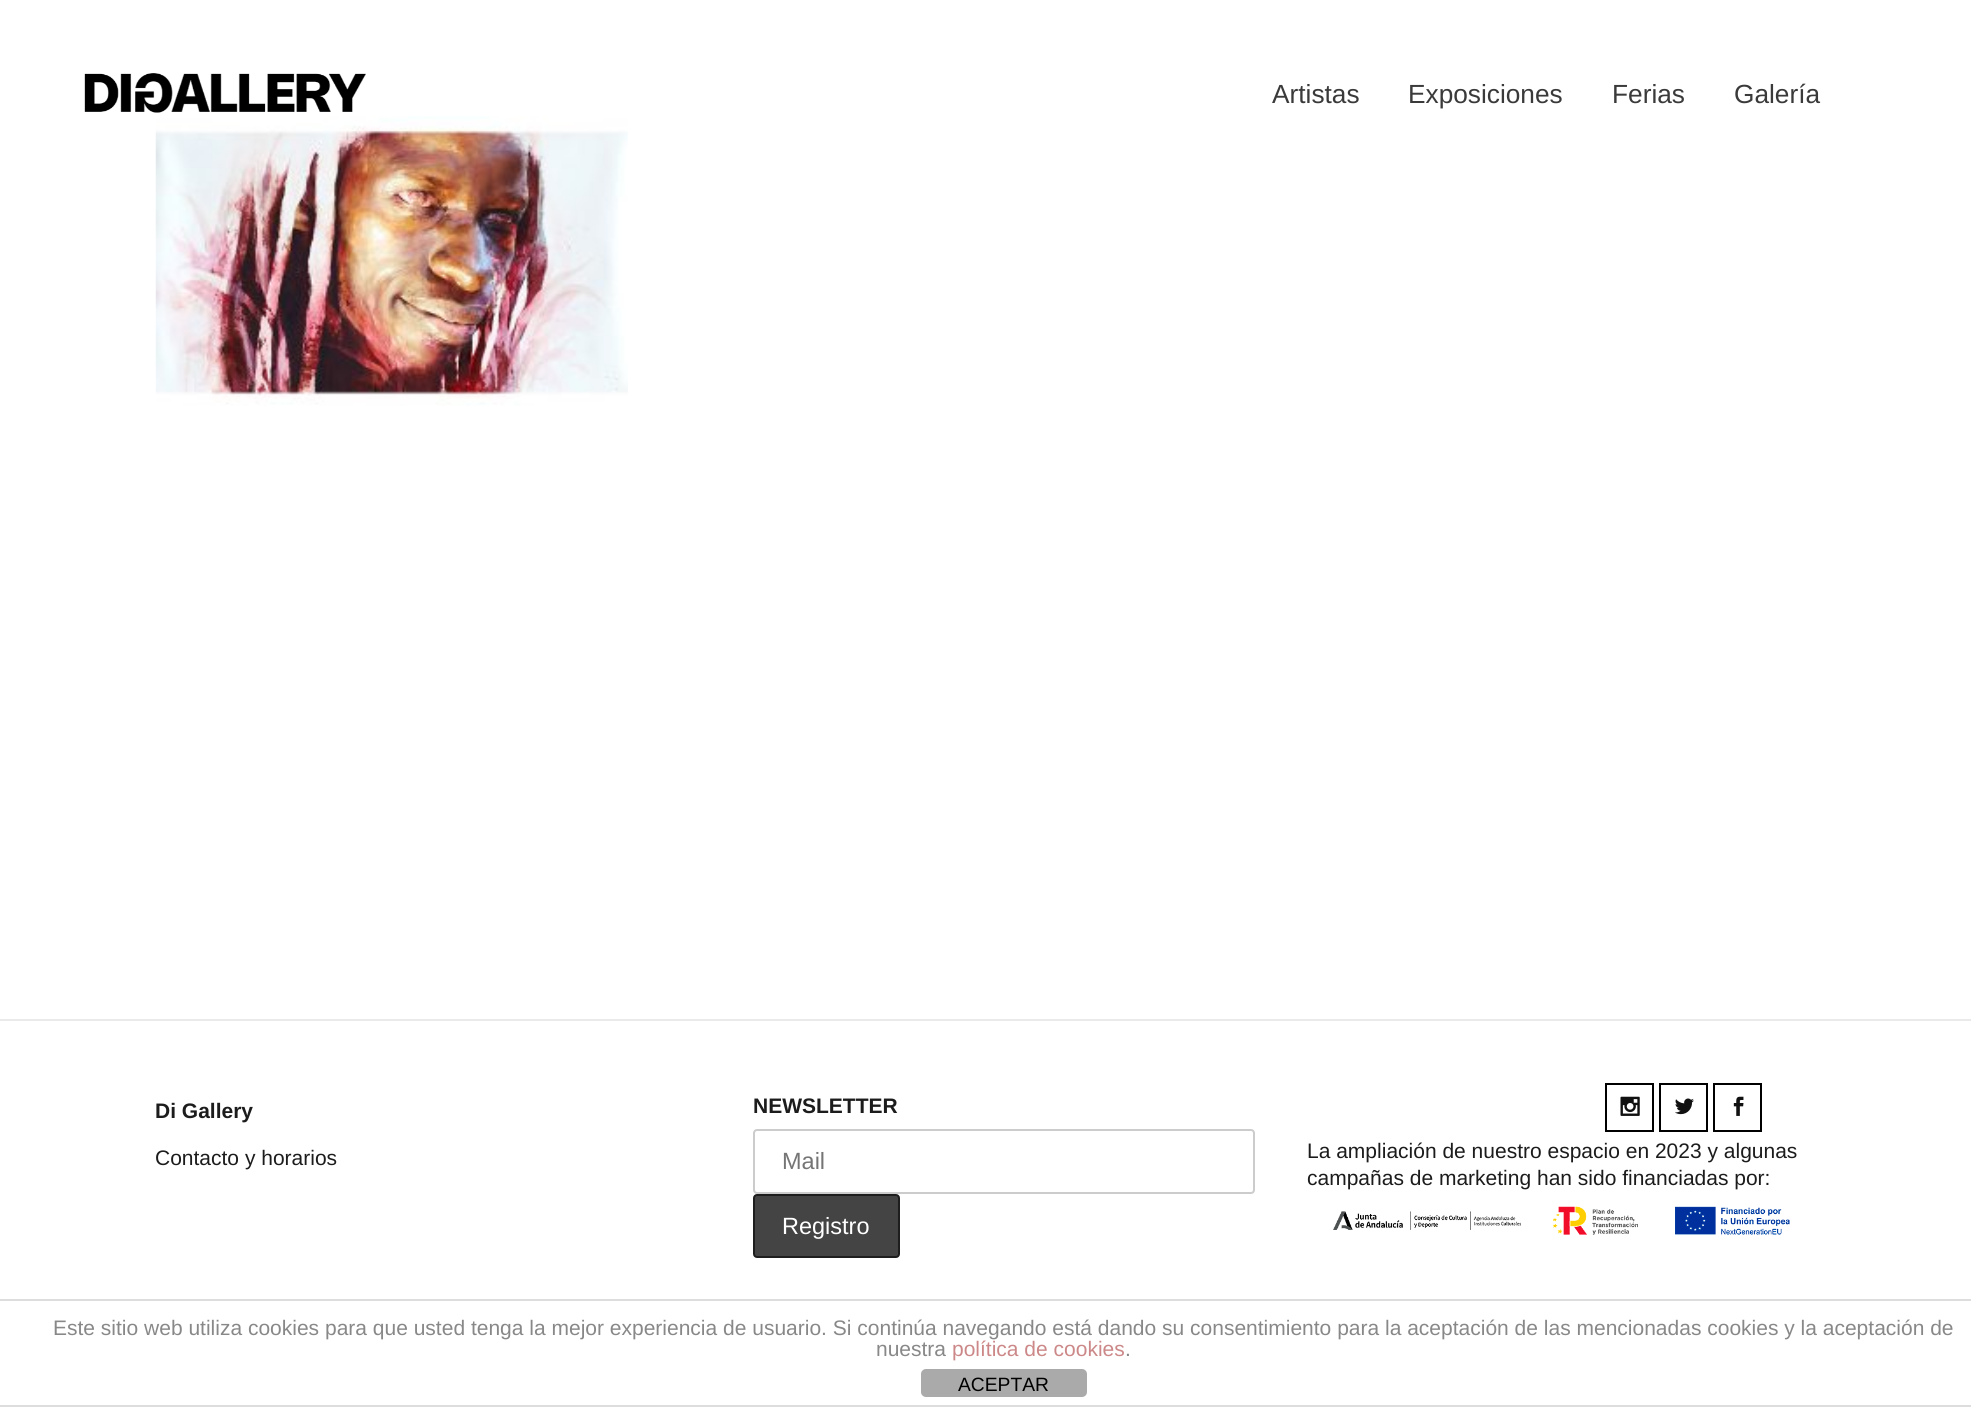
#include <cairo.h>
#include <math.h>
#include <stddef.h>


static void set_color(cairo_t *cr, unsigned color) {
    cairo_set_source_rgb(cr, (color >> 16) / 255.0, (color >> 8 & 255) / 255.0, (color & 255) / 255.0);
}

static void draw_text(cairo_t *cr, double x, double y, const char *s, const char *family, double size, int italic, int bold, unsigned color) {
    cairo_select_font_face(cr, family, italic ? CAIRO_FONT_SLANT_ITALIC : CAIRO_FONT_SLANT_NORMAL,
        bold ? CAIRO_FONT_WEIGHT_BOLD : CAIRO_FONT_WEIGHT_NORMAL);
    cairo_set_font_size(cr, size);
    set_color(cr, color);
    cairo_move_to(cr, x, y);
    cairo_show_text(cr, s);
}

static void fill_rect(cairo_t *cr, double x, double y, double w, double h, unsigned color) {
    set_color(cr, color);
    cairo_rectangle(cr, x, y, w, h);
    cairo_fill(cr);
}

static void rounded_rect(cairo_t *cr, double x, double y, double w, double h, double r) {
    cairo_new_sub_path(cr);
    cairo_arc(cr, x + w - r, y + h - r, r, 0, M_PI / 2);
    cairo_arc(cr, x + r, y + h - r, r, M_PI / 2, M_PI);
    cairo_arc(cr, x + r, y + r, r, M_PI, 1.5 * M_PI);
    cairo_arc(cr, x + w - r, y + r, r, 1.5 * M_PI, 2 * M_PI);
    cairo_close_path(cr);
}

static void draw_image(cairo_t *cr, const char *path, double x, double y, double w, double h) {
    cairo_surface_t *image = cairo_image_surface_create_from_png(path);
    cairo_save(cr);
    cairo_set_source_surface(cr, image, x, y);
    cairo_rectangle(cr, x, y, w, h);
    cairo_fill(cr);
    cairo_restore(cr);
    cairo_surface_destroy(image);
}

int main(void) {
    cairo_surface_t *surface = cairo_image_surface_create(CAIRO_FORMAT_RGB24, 1971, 1407);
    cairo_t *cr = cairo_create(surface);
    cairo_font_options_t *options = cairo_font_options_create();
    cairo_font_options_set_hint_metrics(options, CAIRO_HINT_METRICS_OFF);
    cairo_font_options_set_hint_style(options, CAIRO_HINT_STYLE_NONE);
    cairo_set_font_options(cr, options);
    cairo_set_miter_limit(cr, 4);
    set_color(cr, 0xFFFFFF);
    cairo_paint(cr);
    draw_image(cr, "assets/img1.png", 84, 73, 282, 40);
    draw_text(cr, 1272, 103, "Artistas", "Liberation Sans", 26.25, 0, 0, 0x3A3A3A);
    draw_text(cr, 1408, 103, "Exposiciones", "Liberation Sans", 26.25, 0, 0, 0x3A3A3A);
    draw_text(cr, 1612, 103, "Ferias", "Liberation Sans", 26.25, 0, 0, 0x3A3A3A);
    draw_text(cr, 1734, 103, "Galería", "Liberation Sans", 26.25, 0, 0, 0x3A3A3A);
    draw_image(cr, "assets/img2.png", 155, 116, 473, 290);
    fill_rect(cr, 0, 1019, 1971, 2, 0xEAEAEA);
    draw_text(cr, 155, 1118, "Di Gallery", "Liberation Sans", 21, 0, 1, 0x1C1C1C);
    draw_text(cr, 155, 1165, "Contacto y horarios", "Liberation Sans", 21, 0, 0, 0x1C1C1C);
    draw_text(cr, 753, 1113, "NEWSLETTER", "Liberation Sans", 21, 0, 1, 0x1C1C1C);
    rounded_rect(cr, 754, 1130, 500, 63, 3);
    set_color(cr, 0xCCCCCC);
    cairo_stroke(cr);
    draw_text(cr, 782, 1169, "Mail", "Liberation Sans", 23.5, 0, 0, 0x757575);
    set_color(cr, 0x444444);
    rounded_rect(cr, 754, 1195, 145, 62, 3);
    cairo_fill_preserve(cr);
    set_color(cr, 0x1E1E1E);
    cairo_stroke(cr);
    draw_text(cr, 782, 1234, "Registro", "Liberation Sans", 23.5, 0, 0, 0xFFFFFF);
    cairo_rectangle(cr, 1606, 1084, 47, 47);
    set_color(cr, 0x000000);
    cairo_stroke(cr);
    draw_image(cr, "assets/img3.png", 1620, 1096, 20, 20);
    cairo_rectangle(cr, 1660, 1084, 47, 47);
    cairo_stroke(cr);
    draw_image(cr, "assets/img4.png", 1675, 1098, 19, 17);
    cairo_rectangle(cr, 1714, 1084, 47, 47);
    cairo_stroke(cr);
    draw_image(cr, "assets/img5.png", 1733, 1096, 11, 20);
    draw_text(cr, 1307, 1158, "La ampliación de nuestro espacio en 2023 y algunas", "Liberation Sans", 21, 0, 0, 0x1C1C1C);
    draw_text(cr, 1307, 1185, "campañas de marketing han sido financiadas por:", "Liberation Sans", 21, 0, 0, 0x1C1C1C);
    draw_image(cr, "assets/img6.png", 1333, 1206, 457, 29);
    fill_rect(cr, 0, 1299, 1971, 2, 0xDDDDDD);
    fill_rect(cr, 0, 1405, 1971, 2, 0xDDDDDD);
    draw_text(cr, 53, 1335, "Este sitio web utiliza cookies para que usted tenga la mejor experiencia de usuario. Si continúa navegando está dando su consentimiento para la aceptación de las mencionadas cookies y la aceptación de", "Liberation Sans", 21, 0, 0, 0x888888);
    draw_text(cr, 876, 1356, "nuestra", "Liberation Sans", 21, 0, 0, 0x888888);
    draw_text(cr, 952, 1356, "política de cookies", "Liberation Sans", 21, 0, 0, 0xCC8888);
    draw_text(cr, 1125, 1356, ".", "Liberation Sans", 21, 0, 0, 0x888888);
    set_color(cr, 0xAAAAAA);
    rounded_rect(cr, 921, 1369, 166, 28, 5);
    cairo_fill(cr);
    draw_text(cr, 958, 1391, "ACEPTAR", "Liberation Sans", 19.25, 0, 0, 0x000000);
    cairo_surface_write_to_png(surface, "output.png");
    cairo_font_options_destroy(options);
    cairo_destroy(cr);
    cairo_surface_destroy(surface);
    return 0;
}
